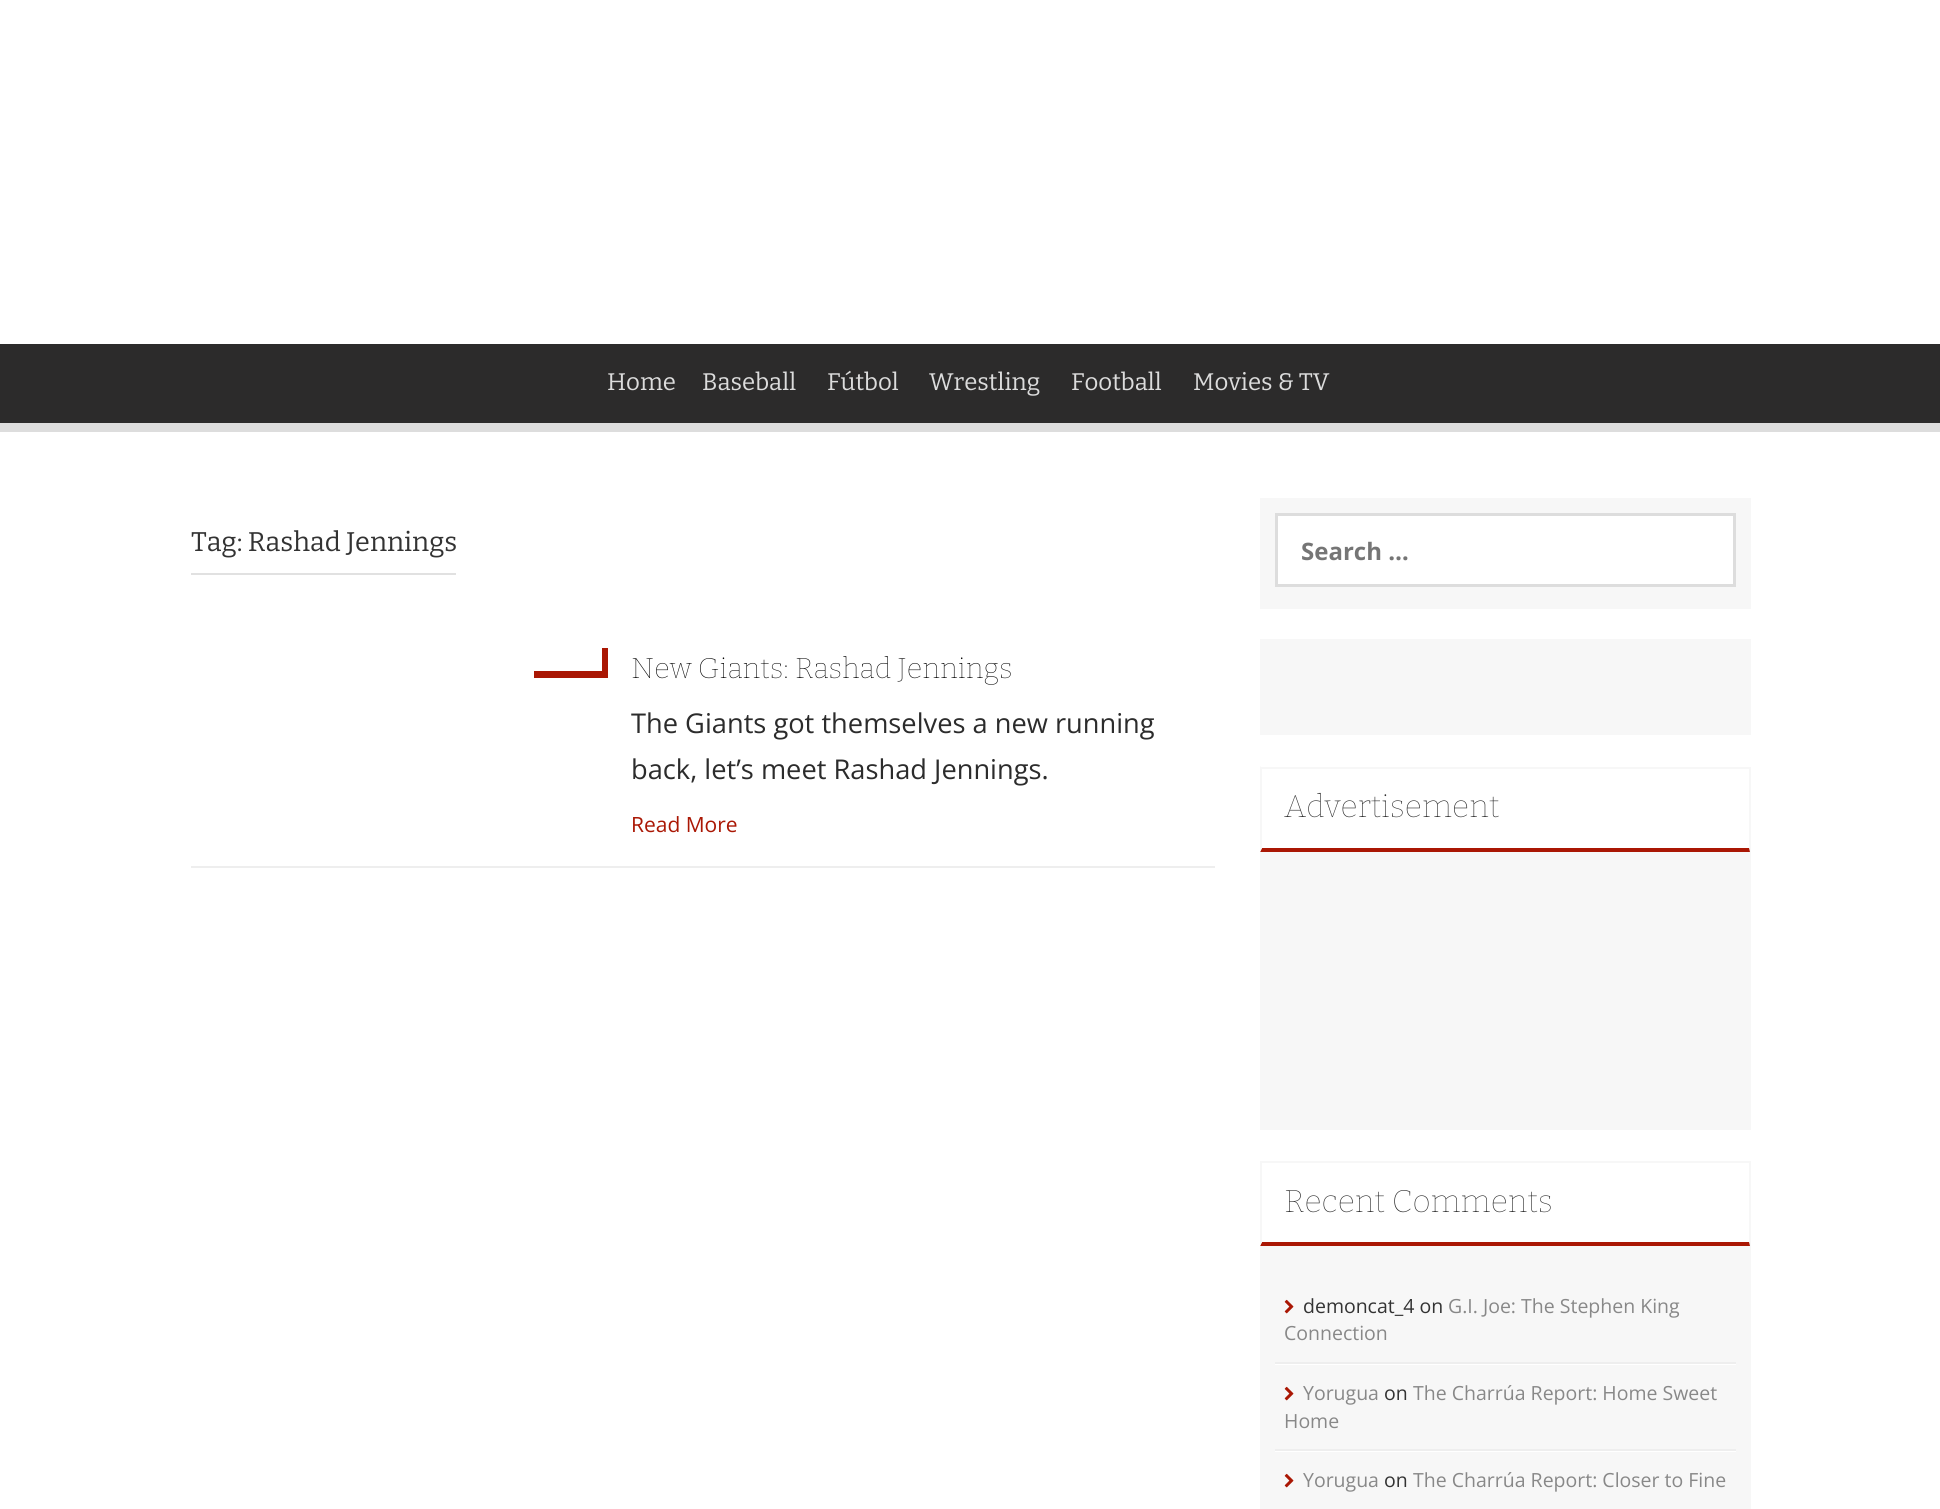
#include <cairo.h>
#include <math.h>
#include <stddef.h>


static void set_color(cairo_t *cr, unsigned color) {
    cairo_set_source_rgb(cr, (color >> 16) / 255.0, (color >> 8 & 255) / 255.0, (color & 255) / 255.0);
}

static void draw_text(cairo_t *cr, double x, double y, const char *s, const char *family, double size, int italic, int bold, unsigned color) {
    cairo_select_font_face(cr, family, italic ? CAIRO_FONT_SLANT_ITALIC : CAIRO_FONT_SLANT_NORMAL,
        bold ? CAIRO_FONT_WEIGHT_BOLD : CAIRO_FONT_WEIGHT_NORMAL);
    cairo_set_font_size(cr, size);
    set_color(cr, color);
    cairo_move_to(cr, x, y);
    cairo_show_text(cr, s);
}

static void fill_rect(cairo_t *cr, double x, double y, double w, double h, unsigned color) {
    set_color(cr, color);
    cairo_rectangle(cr, x, y, w, h);
    cairo_fill(cr);
}

static void draw_image(cairo_t *cr, const char *path, double x, double y, double w, double h) {
    cairo_surface_t *image = cairo_image_surface_create_from_png(path);
    cairo_save(cr);
    cairo_set_source_surface(cr, image, x, y);
    cairo_rectangle(cr, x, y, w, h);
    cairo_fill(cr);
    cairo_restore(cr);
    cairo_surface_destroy(image);
}

int main(void) {
    cairo_surface_t *surface = cairo_image_surface_create(CAIRO_FORMAT_RGB24, 1940, 1509);
    cairo_t *cr = cairo_create(surface);
    cairo_font_options_t *options = cairo_font_options_create();
    cairo_font_options_set_hint_metrics(options, CAIRO_HINT_METRICS_OFF);
    cairo_font_options_set_hint_style(options, CAIRO_HINT_STYLE_NONE);
    cairo_set_font_options(cr, options);
    cairo_set_miter_limit(cr, 4);
    set_color(cr, 0xFFFFFF);
    cairo_paint(cr);
    fill_rect(cr, 0, 344, 1940, 79, 0x2C2B2B);
    fill_rect(cr, 0, 423, 1940, 9, 0xDDDDDD);
    draw_text(cr, 607, 390, "Home", "Bitter", 24, 0, 0, 0xDCDCDC);
    draw_text(cr, 702, 390, "Baseball", "Bitter", 24, 0, 0, 0xDCDCDC);
    draw_text(cr, 827, 390, "Fútbol", "Bitter", 24, 0, 0, 0xDCDCDC);
    draw_text(cr, 929, 390, "Wrestling", "Bitter", 24, 0, 0, 0xDCDCDC);
    draw_text(cr, 1071, 390, "Football", "Bitter", 24, 0, 0, 0xDCDCDC);
    draw_text(cr, 1193, 390, "Movies & TV", "Bitter", 24, 0, 0, 0xDCDCDC);
    fill_rect(cr, 191, 573, 265, 2, 0xE1E1E1);
    draw_text(cr, 191, 551, "Tag: Rashad Jennings", "Bitter", 27, 0, 0, 0x333333);
    fill_rect(cr, 191, 866, 1024, 2, 0xEEEEEE);
    fill_rect(cr, 602, 648, 6, 30, 0xAA1704);
    fill_rect(cr, 534, 671, 68, 7, 0xAA1704);
    draw_text(cr, 631, 678, "New Giants: Rashad Jennings", "Bitter Thin", 28.5, 0, 0, 0x000000);
    draw_text(cr, 631, 733, "The Giants got themselves a new running", "Open Sans", 27.25, 0, 0, 0x2C2C2C);
    draw_text(cr, 631, 779, "back, let’s meet Rashad Jennings.", "Open Sans", 27.25, 0, 0, 0x2C2C2C);
    draw_text(cr, 631, 832, "Read More", "Open Sans", 21, 0, 0, 0xAA1704);
    fill_rect(cr, 1260, 498, 491, 111, 0xF7F7F7);
    set_color(cr, 0xFFFFFF);
    cairo_rectangle(cr, 1276.5, 514.5, 458, 71);
    cairo_fill_preserve(cr);
    set_color(cr, 0xDDDDDD);
    cairo_set_line_width(cr, 3);
    cairo_stroke(cr);
    draw_text(cr, 1301, 560, "Search …", "Open Sans", 24, 0, 1, 0x757575);
    fill_rect(cr, 1260, 639, 491, 96, 0xF7F7F7);
    fill_rect(cr, 1260, 767, 491, 363, 0xF7F7F7);
    fill_rect(cr, 1262, 769, 487, 79, 0xFFFFFF);
    set_color(cr, 0xAA1704);
    cairo_new_path(cr);
    cairo_move_to(cr, 1750, 852);
    cairo_line_to(cr, 1260, 852);
    cairo_line_to(cr, 1262, 848);
    cairo_line_to(cr, 1749, 848);
    cairo_close_path(cr);
    cairo_fill(cr);
    set_color(cr, 0xF7F7F7);
    cairo_new_path(cr);
    cairo_move_to(cr, 1260, 852);
    cairo_line_to(cr, 1260, 766);
    cairo_line_to(cr, 1262, 768);
    cairo_line_to(cr, 1262, 848);
    cairo_close_path(cr);
    cairo_fill(cr);
    draw_text(cr, 1284, 817, "Advertisement", "Bitter Thin", 31.5, 0, 0, 0x2C2C2C);
    fill_rect(cr, 1260, 1161, 491, 348, 0xF7F7F7);
    fill_rect(cr, 1262, 1163, 487, 79, 0xFFFFFF);
    set_color(cr, 0xAA1704);
    cairo_new_path(cr);
    cairo_move_to(cr, 1750, 1246);
    cairo_line_to(cr, 1260, 1246);
    cairo_line_to(cr, 1262, 1242);
    cairo_line_to(cr, 1749, 1242);
    cairo_close_path(cr);
    cairo_fill(cr);
    set_color(cr, 0xF7F7F7);
    cairo_new_path(cr);
    cairo_move_to(cr, 1260, 1246);
    cairo_line_to(cr, 1260, 1161);
    cairo_line_to(cr, 1262, 1162);
    cairo_line_to(cr, 1262, 1242);
    cairo_close_path(cr);
    cairo_fill(cr);
    draw_text(cr, 1284, 1212, "Recent Comments", "Bitter Thin", 31.5, 0, 0, 0x2C2C2C);
    set_color(cr, 0xFFFFFF);
    cairo_new_path(cr);
    cairo_move_to(cr, 1275, 1364);
    cairo_line_to(cr, 1275, 1365);
    cairo_line_to(cr, 1736, 1365);
    cairo_line_to(cr, 1736, 1278);
    cairo_line_to(cr, 1736, 1364);
    cairo_close_path(cr);
    cairo_fill(cr);
    fill_rect(cr, 1275, 1362, 461, 2, 0xEEEEEE);
    draw_image(cr, "assets/img1.png", 1284, 1299, 10, 15);
    draw_text(cr, 1303, 1313, "demoncat_4 on", "Open Sans", 19.5, 0, 0, 0x333333);
    draw_text(cr, 1448, 1313, "G.I. Joe: The Stephen King", "Open Sans", 19.5, 0, 0, 0x888888);
    draw_text(cr, 1284, 1340, "Connection", "Open Sans", 19.5, 0, 0, 0x888888);
    set_color(cr, 0xFFFFFF);
    cairo_new_path(cr);
    cairo_move_to(cr, 1275, 1450);
    cairo_line_to(cr, 1275, 1452);
    cairo_line_to(cr, 1736, 1452);
    cairo_line_to(cr, 1736, 1365);
    cairo_line_to(cr, 1736, 1450);
    cairo_close_path(cr);
    cairo_fill(cr);
    fill_rect(cr, 1275, 1449, 461, 2, 0xEEEEEE);
    draw_image(cr, "assets/img1.png", 1284, 1386, 10, 15);
    draw_text(cr, 1303, 1400, "Yorugua", "Open Sans", 19.5, 0, 0, 0x888888);
    draw_text(cr, 1384, 1400, "on", "Open Sans", 19.5, 0, 0, 0x333333);
    draw_text(cr, 1413, 1400, "The Charrúa Report: Home Sweet", "Open Sans", 19.5, 0, 0, 0x888888);
    draw_text(cr, 1284, 1428, "Home", "Open Sans", 19.5, 0, 0, 0x888888);
    draw_image(cr, "assets/img1.png", 1284, 1473, 10, 15);
    draw_text(cr, 1303, 1487, "Yorugua", "Open Sans", 19.5, 0, 0, 0x888888);
    draw_text(cr, 1384, 1487, "on", "Open Sans", 19.5, 0, 0, 0x333333);
    draw_text(cr, 1413, 1487, "The Charrúa Report: Closer to Fine", "Open Sans", 19.5, 0, 0, 0x888888);
    cairo_surface_write_to_png(surface, "output.png");
    cairo_font_options_destroy(options);
    cairo_destroy(cr);
    cairo_surface_destroy(surface);
    return 0;
}
